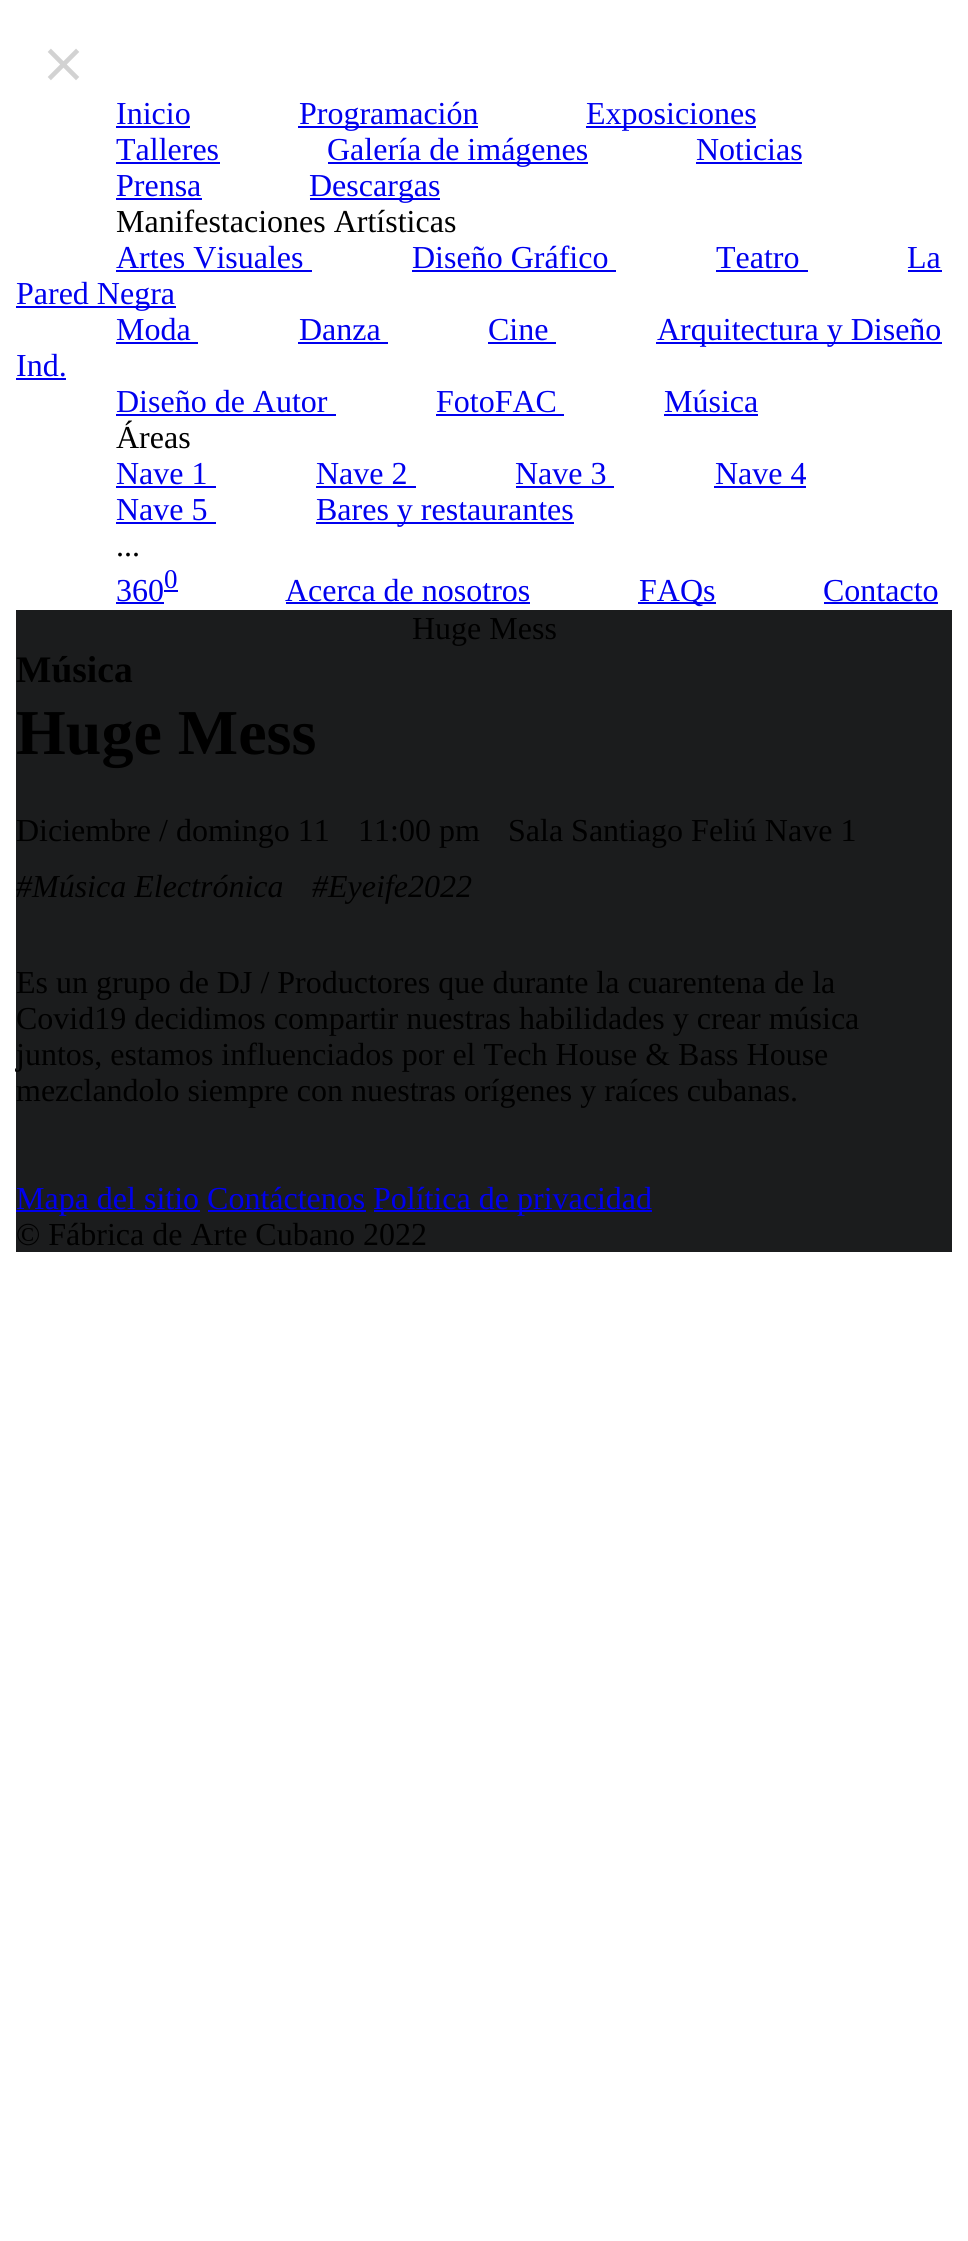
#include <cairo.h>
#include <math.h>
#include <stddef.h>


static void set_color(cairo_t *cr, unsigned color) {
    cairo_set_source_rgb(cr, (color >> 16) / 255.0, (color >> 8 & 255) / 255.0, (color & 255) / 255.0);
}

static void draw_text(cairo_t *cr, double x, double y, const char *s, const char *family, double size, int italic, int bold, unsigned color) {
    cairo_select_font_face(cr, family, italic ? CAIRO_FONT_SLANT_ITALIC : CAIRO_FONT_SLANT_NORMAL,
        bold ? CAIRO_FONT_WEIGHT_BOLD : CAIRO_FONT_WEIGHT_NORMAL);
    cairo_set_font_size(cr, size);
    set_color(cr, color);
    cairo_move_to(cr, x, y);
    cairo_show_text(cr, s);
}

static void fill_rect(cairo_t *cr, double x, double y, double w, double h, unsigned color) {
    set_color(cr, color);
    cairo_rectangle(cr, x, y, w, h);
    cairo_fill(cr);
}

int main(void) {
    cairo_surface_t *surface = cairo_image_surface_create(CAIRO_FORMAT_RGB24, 968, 2241);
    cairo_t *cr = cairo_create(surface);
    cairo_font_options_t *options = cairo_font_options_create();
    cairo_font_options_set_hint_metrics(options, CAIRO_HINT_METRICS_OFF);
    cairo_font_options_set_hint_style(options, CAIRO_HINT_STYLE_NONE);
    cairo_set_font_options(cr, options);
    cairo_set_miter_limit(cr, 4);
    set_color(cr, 0xFFFFFF);
    cairo_paint(cr);
    draw_text(cr, 40, 82, "⨯", "DejaVu Sans", 56, 0, 0, 0xD2D2D2);
    draw_text(cr, 116, 124, "Inicio", "Liberation Serif", 32, 0, 0, 0x0000EE);
    fill_rect(cr, 116, 126, 74, 2, 0x0000EE);
    fill_rect(cr, 298, 126, 180, 2, 0x0000EE);
    draw_text(cr, 299, 124, "Programación", "Liberation Serif", 32, 0, 0, 0x0000EE);
    fill_rect(cr, 586, 126, 170, 2, 0x0000EE);
    draw_text(cr, 586, 124, "Exposiciones", "Liberation Serif", 32, 0, 0, 0x0000EE);
    draw_text(cr, 116, 160, "Talleres", "Liberation Serif", 32, 0, 0, 0x0000EE);
    fill_rect(cr, 116, 162, 104, 2, 0x0000EE);
    fill_rect(cr, 328, 162, 260, 2, 0x0000EE);
    draw_text(cr, 327, 160, "Galería de imágenes", "Liberation Serif", 32, 0, 0, 0x0000EE);
    draw_text(cr, 696, 160, "Noticias", "Liberation Serif", 32, 0, 0, 0x0000EE);
    fill_rect(cr, 696, 162, 106, 2, 0x0000EE);
    draw_text(cr, 116, 196, "Prensa", "Liberation Serif", 32, 0, 0, 0x0000EE);
    fill_rect(cr, 116, 198, 86, 2, 0x0000EE);
    fill_rect(cr, 310, 198, 130, 2, 0x0000EE);
    draw_text(cr, 309, 196, "Descargas", "Liberation Serif", 32, 0, 0, 0x0000EE);
    draw_text(cr, 116, 232, "Manifestaciones Artísticas", "Liberation Serif", 32, 0, 0, 0x000000);
    draw_text(cr, 116, 268, "Artes Visuales", "Liberation Serif", 32, 0, 0, 0x0000EE);
    fill_rect(cr, 116, 270, 196, 2, 0x0000EE);
    draw_text(cr, 412, 268, "Diseño Gráfico", "Liberation Serif", 32, 0, 0, 0x0000EE);
    fill_rect(cr, 412, 270, 204, 2, 0x0000EE);
    draw_text(cr, 716, 268, "Teatro", "Liberation Serif", 32, 0, 0, 0x0000EE);
    fill_rect(cr, 716, 270, 92, 2, 0x0000EE);
    draw_text(cr, 907, 268, "La", "Liberation Serif", 32, 0, 0, 0x0000EE);
    fill_rect(cr, 908, 270, 34, 2, 0x0000EE);
    fill_rect(cr, 16, 306, 160, 2, 0x0000EE);
    draw_text(cr, 16, 304, "Pared Negra", "Liberation Serif", 32, 0, 0, 0x0000EE);
    draw_text(cr, 116, 340, "Moda", "Liberation Serif", 32, 0, 0, 0x0000EE);
    fill_rect(cr, 116, 342, 82, 2, 0x0000EE);
    draw_text(cr, 299, 340, "Danza", "Liberation Serif", 32, 0, 0, 0x0000EE);
    fill_rect(cr, 298, 342, 90, 2, 0x0000EE);
    draw_text(cr, 488, 340, "Cine", "Liberation Serif", 32, 0, 0, 0x0000EE);
    fill_rect(cr, 488, 342, 68, 2, 0x0000EE);
    fill_rect(cr, 656, 342, 286, 2, 0x0000EE);
    draw_text(cr, 657, 340, "Arquitectura y Diseño", "Liberation Serif", 32, 0, 0, 0x0000EE);
    draw_text(cr, 16, 376, "Ind.", "Liberation Serif", 32, 0, 0, 0x0000EE);
    fill_rect(cr, 16, 378, 50, 2, 0x0000EE);
    draw_text(cr, 116, 412, "Diseño de Autor", "Liberation Serif", 32, 0, 0, 0x0000EE);
    fill_rect(cr, 116, 414, 220, 2, 0x0000EE);
    draw_text(cr, 436, 412, "FotoFAC", "Liberation Serif", 32, 0, 0, 0x0000EE);
    fill_rect(cr, 436, 414, 128, 2, 0x0000EE);
    draw_text(cr, 664, 412, "Música", "Liberation Serif", 32, 0, 0, 0x0000EE);
    fill_rect(cr, 664, 414, 94, 2, 0x0000EE);
    draw_text(cr, 116, 448, "Áreas", "Liberation Serif", 32, 0, 0, 0x000000);
    draw_text(cr, 116, 484, "Nave 1", "Liberation Serif", 32, 0, 0, 0x0000EE);
    fill_rect(cr, 116, 486, 100, 2, 0x0000EE);
    draw_text(cr, 316, 484, "Nave 2", "Liberation Serif", 32, 0, 0, 0x0000EE);
    fill_rect(cr, 316, 486, 100, 2, 0x0000EE);
    draw_text(cr, 515, 484, "Nave 3", "Liberation Serif", 32, 0, 0, 0x0000EE);
    fill_rect(cr, 516, 486, 98, 2, 0x0000EE);
    draw_text(cr, 715, 484, "Nave 4", "Liberation Serif", 32, 0, 0, 0x0000EE);
    fill_rect(cr, 714, 486, 92, 2, 0x0000EE);
    draw_text(cr, 116, 520, "Nave 5", "Liberation Serif", 32, 0, 0, 0x0000EE);
    fill_rect(cr, 116, 522, 100, 2, 0x0000EE);
    fill_rect(cr, 316, 522, 258, 2, 0x0000EE);
    draw_text(cr, 316, 520, "Bares y restaurantes", "Liberation Serif", 32, 0, 0, 0x0000EE);
    draw_text(cr, 116, 556, "...", "Liberation Serif", 32, 0, 0, 0x000000);
    draw_text(cr, 116, 601, "360", "Liberation Serif", 32, 0, 0, 0x0000EE);
    fill_rect(cr, 116, 602, 48, 2, 0x0000EE);
    fill_rect(cr, 164, 590, 14, 2, 0x0000EE);
    draw_text(cr, 164, 588, "0", "Liberation Serif", 27, 0, 0, 0x0000EE);
    draw_text(cr, 285, 601, "Acerca de nosotros", "Liberation Serif", 32, 0, 0, 0x0000EE);
    fill_rect(cr, 286, 602, 244, 2, 0x0000EE);
    fill_rect(cr, 638, 602, 78, 2, 0x0000EE);
    draw_text(cr, 639, 601, "FAQs", "Liberation Serif", 32, 0, 0, 0x0000EE);
    draw_text(cr, 823, 601, "Contacto", "Liberation Serif", 32, 0, 0, 0x0000EE);
    fill_rect(cr, 824, 602, 114, 2, 0x0000EE);
    fill_rect(cr, 16, 610, 936, 642, 0x1B1C1D);
    draw_text(cr, 412, 639, "Huge Mess", "Liberation Serif", 32, 0, 0, 0x000000);
    draw_text(cr, 16, 682, "Música", "Liberation Serif", 37.5, 0, 1, 0x000000);
    draw_text(cr, 16, 754, "Huge Mess", "Liberation Serif", 64, 0, 1, 0x000000);
    draw_text(cr, 16, 841, "Diciembre / domingo 11", "Liberation Serif", 32, 0, 0, 0x000000);
    draw_text(cr, 358, 841, "11:00 pm", "Liberation Serif", 32, 0, 0, 0x000000);
    draw_text(cr, 508, 841, "Sala Santiago Feliú Nave 1", "Liberation Serif", 32, 0, 0, 0x000000);
    draw_text(cr, 16, 897, "#Música Electrónica", "Liberation Serif", 32, 1, 0, 0x000000);
    draw_text(cr, 312, 897, "#Eyeife2022", "Liberation Serif", 32, 1, 0, 0x000000);
    draw_text(cr, 16, 993, "Es un grupo de DJ / Productores que durante la cuarentena de la", "Liberation Serif", 32, 0, 0, 0x000000);
    draw_text(cr, 16, 1029, "Covid19 decidimos compartir nuestras habilidades y crear música", "Liberation Serif", 32, 0, 0, 0x000000);
    draw_text(cr, 16, 1065, "juntos, estamos influenciados por el Tech House & Bass House", "Liberation Serif", 32, 0, 0, 0x000000);
    draw_text(cr, 16, 1101, "mezclandolo siempre con nuestras orígenes y raíces cubanas.", "Liberation Serif", 32, 0, 0, 0x000000);
    fill_rect(cr, 16, 1210, 184, 2, 0x0000EE);
    draw_text(cr, 16, 1209, "Mapa del sitio Contáctenos", "Liberation Serif", 32, 0, 0, 0x0000EE);
    fill_rect(cr, 374, 1210, 278, 2, 0x0000EE);
    draw_text(cr, 373, 1209, "Política de privacidad", "Liberation Serif", 32, 0, 0, 0x0000EE);
    fill_rect(cr, 208, 1210, 158, 2, 0x0000EE);
    draw_text(cr, 16, 1245, "© Fábrica de Arte Cubano 2022", "Liberation Serif", 32, 0, 0, 0x000000);
    cairo_surface_write_to_png(surface, "output.png");
    cairo_font_options_destroy(options);
    cairo_destroy(cr);
    cairo_surface_destroy(surface);
    return 0;
}
